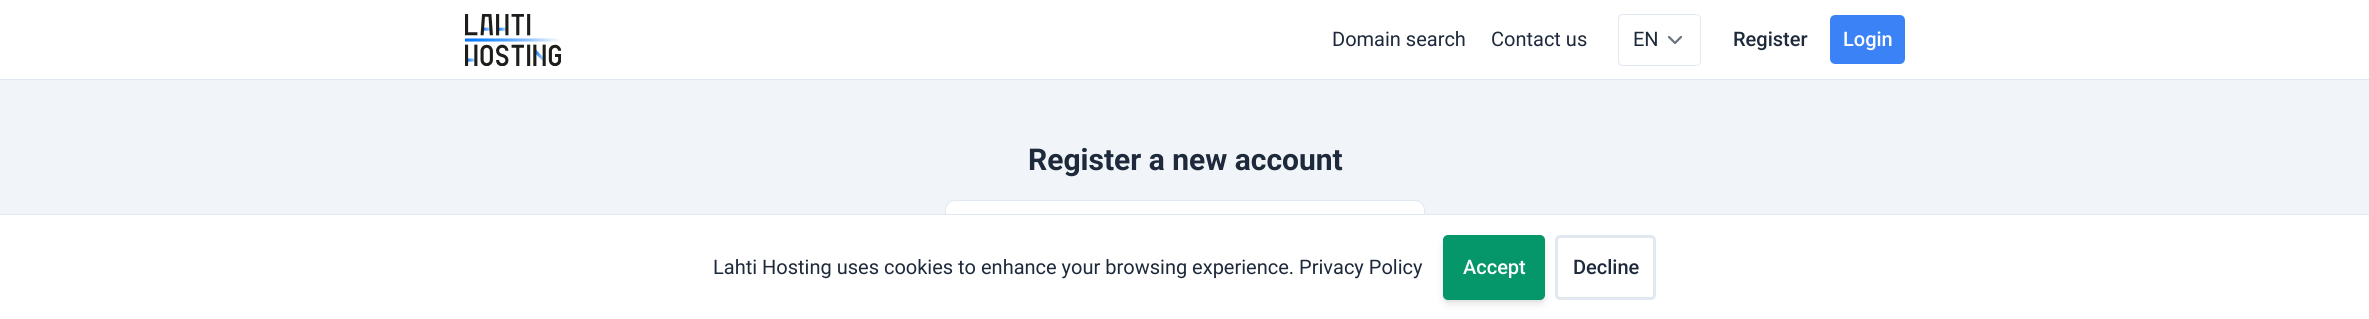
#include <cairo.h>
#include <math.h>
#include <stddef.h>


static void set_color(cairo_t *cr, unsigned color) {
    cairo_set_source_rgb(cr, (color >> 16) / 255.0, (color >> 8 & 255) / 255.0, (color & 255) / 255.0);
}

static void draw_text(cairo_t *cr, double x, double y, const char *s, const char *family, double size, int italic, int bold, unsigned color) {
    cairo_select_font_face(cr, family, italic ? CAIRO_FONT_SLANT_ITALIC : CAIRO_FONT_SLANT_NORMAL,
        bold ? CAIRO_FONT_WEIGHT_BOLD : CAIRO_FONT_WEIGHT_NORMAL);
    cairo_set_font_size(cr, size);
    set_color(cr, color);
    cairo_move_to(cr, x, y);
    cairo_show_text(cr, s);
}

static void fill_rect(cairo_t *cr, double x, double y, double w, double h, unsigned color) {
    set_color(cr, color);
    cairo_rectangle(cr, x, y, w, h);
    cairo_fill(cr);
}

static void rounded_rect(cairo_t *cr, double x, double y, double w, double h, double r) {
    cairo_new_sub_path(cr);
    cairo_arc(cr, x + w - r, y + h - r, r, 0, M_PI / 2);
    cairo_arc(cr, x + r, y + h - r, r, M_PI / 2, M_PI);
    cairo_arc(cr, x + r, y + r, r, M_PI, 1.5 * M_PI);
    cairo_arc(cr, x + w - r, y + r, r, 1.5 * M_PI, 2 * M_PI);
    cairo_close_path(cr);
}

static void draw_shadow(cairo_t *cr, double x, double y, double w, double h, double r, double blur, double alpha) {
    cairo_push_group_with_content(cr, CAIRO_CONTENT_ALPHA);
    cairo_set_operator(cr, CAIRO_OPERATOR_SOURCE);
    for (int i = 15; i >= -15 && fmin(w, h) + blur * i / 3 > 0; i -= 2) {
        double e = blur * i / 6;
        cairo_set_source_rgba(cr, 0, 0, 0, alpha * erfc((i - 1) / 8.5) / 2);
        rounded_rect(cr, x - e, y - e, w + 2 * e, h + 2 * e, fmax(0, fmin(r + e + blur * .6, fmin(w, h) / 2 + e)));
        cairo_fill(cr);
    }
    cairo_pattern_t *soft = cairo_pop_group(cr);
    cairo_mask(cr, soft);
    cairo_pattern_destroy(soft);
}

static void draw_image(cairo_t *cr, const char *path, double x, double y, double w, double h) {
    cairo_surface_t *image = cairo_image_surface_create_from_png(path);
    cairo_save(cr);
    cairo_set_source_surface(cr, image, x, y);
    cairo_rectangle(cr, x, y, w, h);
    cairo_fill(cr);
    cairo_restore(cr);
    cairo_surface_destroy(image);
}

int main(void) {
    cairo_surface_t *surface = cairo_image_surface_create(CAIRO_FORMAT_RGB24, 2369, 319);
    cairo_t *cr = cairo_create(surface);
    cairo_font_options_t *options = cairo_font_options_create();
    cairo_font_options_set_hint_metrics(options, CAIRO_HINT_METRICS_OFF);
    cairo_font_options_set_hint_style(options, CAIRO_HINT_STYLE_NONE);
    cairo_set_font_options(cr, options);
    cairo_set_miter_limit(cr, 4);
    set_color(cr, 0xF1F5F9);
    cairo_paint(cr);
    fill_rect(cr, 0, 0, 2369, 79, 0xFFFFFF);
    fill_rect(cr, 0, 79, 2369, 1, 0xE2E8F0);
    draw_image(cr, "assets/img1.png", 465, 14, 96, 52);
    draw_text(cr, 1332, 46, "Domain search", "Roboto", 20, 0, 0, 0x1E293B);
    draw_text(cr, 1491, 46, "Contact us", "Roboto", 20, 0, 0, 0x1E293B);
    cairo_new_path(cr);
    cairo_move_to(cr, 1669, 37);
    cairo_line_to(cr, 1675, 43);
    cairo_line_to(cr, 1681, 37);
    set_color(cr, 0x6B7280);
    cairo_set_line_width(cr, 2.2);
    cairo_set_line_cap(cr, CAIRO_LINE_CAP_ROUND);
    cairo_set_line_join(cr, CAIRO_LINE_JOIN_ROUND);
    cairo_stroke(cr);
    rounded_rect(cr, 1618.5, 14.5, 82, 51, 4.5);
    set_color(cr, 0xE2E8F0);
    cairo_set_line_width(cr, 1);
    cairo_set_line_cap(cr, CAIRO_LINE_CAP_BUTT);
    cairo_set_line_join(cr, CAIRO_LINE_JOIN_MITER);
    cairo_stroke(cr);
    draw_text(cr, 1633, 46, "EN", "Roboto", 20, 0, 0, 0x1E293B);
    draw_text(cr, 1733, 46, "Register", "Roboto Medium", 20, 0, 0, 0x1E293B);
    set_color(cr, 0x3B82F6);
    rounded_rect(cr, 1831.5, 16.5, 72, 46, 3.5);
    cairo_fill_preserve(cr);
    cairo_set_line_width(cr, 3);
    cairo_stroke(cr);
    draw_text(cr, 1843, 46, "Login", "Roboto Medium", 20, 0, 0, 0xFFFFFF);
    draw_text(cr, 1028, 170, "Register a new account", "Roboto", 30, 0, 1, 0x1E293B);
    set_color(cr, 0xFFFFFF);
    rounded_rect(cr, 945.5, 200.5, 479, 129, 9.5);
    cairo_fill_preserve(cr);
    set_color(cr, 0xE2E8F0);
    cairo_set_line_width(cr, 1);
    cairo_stroke(cr);
    fill_rect(cr, 0, 215, 2369, 104, 0xFFFFFF);
    fill_rect(cr, 0, 214, 2369, 1, 0xE2E8F0);
    draw_text(cr, 713, 274, "Lahti Hosting uses cookies to enhance your browsing experience. Privacy Policy", "Roboto", 20, 0, 0, 0x1E293B);
    set_color(cr, 0x000000);
    draw_shadow(cr, 1445, 240, 98, 60, 2.5, 2.5, 0.1);
    draw_shadow(cr, 1444, 241, 100, 63, 4, 4, 0.1);
    set_color(cr, 0x059669);
    rounded_rect(cr, 1443, 235, 102, 65, 5);
    cairo_fill(cr);
    draw_text(cr, 1463, 274, "Accept", "Roboto Medium", 20, 0, 0, 0xFFFFFF);
    rounded_rect(cr, 1556.5, 236.5, 98, 62, 3.5);
    set_color(cr, 0xE2E8F0);
    cairo_set_line_width(cr, 3);
    cairo_stroke(cr);
    draw_text(cr, 1573, 274, "Decline", "Roboto Medium", 20, 0, 0, 0x1E293B);
    cairo_surface_write_to_png(surface, "output.png");
    cairo_font_options_destroy(options);
    cairo_destroy(cr);
    cairo_surface_destroy(surface);
    return 0;
}
